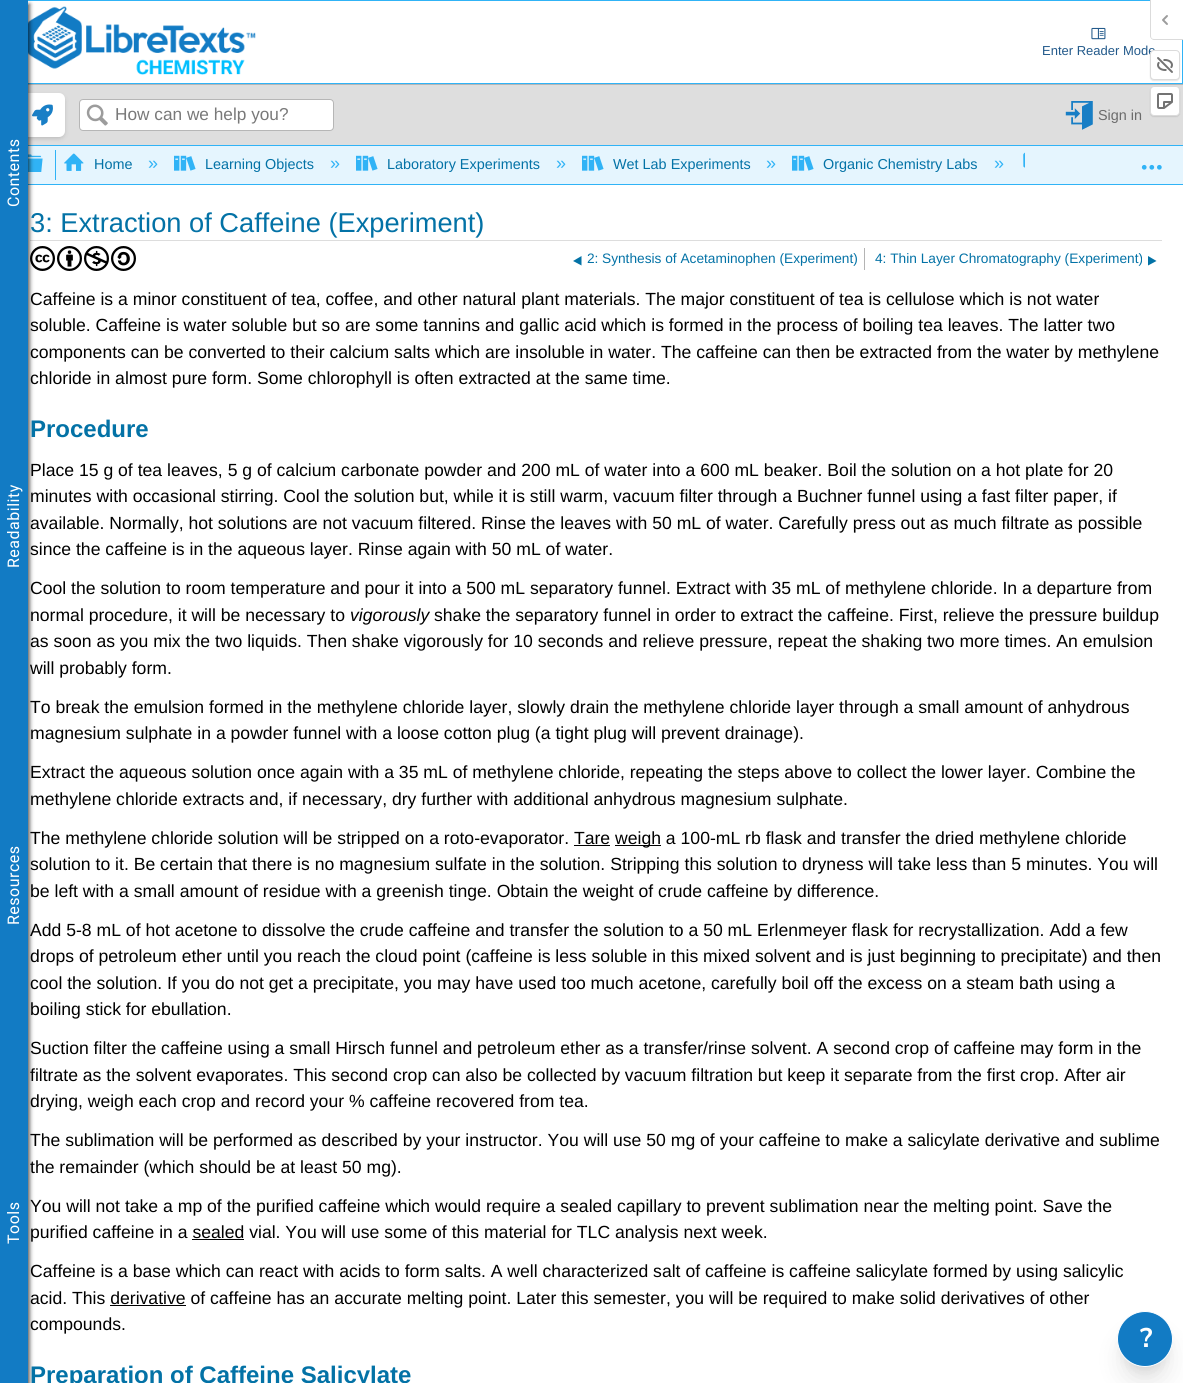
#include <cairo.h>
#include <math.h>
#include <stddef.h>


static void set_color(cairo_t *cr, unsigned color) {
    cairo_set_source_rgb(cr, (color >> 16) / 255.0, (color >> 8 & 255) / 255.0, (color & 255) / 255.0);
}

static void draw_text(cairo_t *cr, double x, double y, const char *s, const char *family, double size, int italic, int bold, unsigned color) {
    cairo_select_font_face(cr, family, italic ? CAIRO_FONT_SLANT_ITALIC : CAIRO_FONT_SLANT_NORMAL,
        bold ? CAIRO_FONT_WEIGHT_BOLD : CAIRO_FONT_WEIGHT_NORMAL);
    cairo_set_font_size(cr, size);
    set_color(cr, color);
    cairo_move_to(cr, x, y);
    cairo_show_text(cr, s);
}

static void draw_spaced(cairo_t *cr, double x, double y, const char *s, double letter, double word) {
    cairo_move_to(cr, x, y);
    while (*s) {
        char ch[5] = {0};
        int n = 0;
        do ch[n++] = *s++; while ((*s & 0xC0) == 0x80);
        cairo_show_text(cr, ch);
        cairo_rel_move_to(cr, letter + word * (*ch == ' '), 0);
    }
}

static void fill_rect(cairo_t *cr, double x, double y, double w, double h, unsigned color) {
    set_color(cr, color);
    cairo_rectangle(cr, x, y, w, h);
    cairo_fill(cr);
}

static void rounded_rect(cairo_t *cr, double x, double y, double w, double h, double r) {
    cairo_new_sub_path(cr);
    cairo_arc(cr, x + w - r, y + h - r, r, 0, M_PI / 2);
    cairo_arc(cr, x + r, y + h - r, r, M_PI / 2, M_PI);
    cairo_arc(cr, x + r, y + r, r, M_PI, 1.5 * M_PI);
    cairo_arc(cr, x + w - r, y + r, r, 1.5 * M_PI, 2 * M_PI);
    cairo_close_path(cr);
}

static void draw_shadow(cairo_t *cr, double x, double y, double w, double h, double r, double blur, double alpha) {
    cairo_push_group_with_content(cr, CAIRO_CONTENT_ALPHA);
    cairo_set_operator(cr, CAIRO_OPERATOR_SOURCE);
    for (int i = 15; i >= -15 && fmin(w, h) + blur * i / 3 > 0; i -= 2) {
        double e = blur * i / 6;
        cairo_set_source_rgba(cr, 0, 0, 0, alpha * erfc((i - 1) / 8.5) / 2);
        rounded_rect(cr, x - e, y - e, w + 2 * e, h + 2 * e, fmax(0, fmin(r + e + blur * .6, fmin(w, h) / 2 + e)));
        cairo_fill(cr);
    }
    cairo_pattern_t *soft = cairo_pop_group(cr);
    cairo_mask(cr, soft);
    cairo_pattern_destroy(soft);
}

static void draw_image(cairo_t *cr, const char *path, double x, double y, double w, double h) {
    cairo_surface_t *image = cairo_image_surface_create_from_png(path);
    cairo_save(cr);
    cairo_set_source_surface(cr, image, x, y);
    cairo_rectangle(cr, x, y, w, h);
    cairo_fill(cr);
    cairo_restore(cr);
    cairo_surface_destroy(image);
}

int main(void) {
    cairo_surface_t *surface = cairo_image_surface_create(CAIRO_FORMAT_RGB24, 1183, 1383);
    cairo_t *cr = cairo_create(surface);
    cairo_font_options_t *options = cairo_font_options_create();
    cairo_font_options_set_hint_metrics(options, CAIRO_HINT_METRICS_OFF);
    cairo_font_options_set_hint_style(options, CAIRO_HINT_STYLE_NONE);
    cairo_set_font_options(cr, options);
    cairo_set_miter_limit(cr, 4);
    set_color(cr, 0xFFFFFF);
    cairo_paint(cr);
    cairo_rectangle(cr, 0.5, 0.5, 1182, 83);
    set_color(cr, 0x30B3F6);
    cairo_set_line_width(cr, 1);
    cairo_stroke(cr);
    draw_image(cr, "assets/img1.png", 28, 6, 228, 69);
    fill_rect(cr, 28, 85, 1155, 60, 0xDEDEDE);
    fill_rect(cr, 28, 84, 1155, 1, 0xB6B6B6);
    fill_rect(cr, 28, 146, 1155, 38, 0xE5F5FE);
    fill_rect(cr, 28, 145, 1155, 1, 0x30B3F6);
    set_color(cr, 0x080808);
    draw_shadow(cr, 22, 96, 42, 42, 5, 2.5, 0.2);
    set_color(cr, 0xFFFFFF);
    rounded_rect(cr, 21, 93, 44, 44, 6);
    cairo_fill(cr);
    draw_image(cr, "assets/img3.png", 32, 104, 21, 22);
    fill_rect(cr, 28, 184, 1155, 1, 0x30B3F6);
    draw_image(cr, "assets/img6.png", 28, 154, 15, 18);
    fill_rect(cr, 30, 240, 1132, 1, 0xDDDDDD);
    draw_image(cr, "assets/img11.png", 30, 246, 25, 25);
    set_color(cr, 0x000000);
    draw_shadow(cr, 2, 4, 28, 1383, 0, 2, 0.6);
    fill_rect(cr, 0, 0, 28, 1383, 0x127BC4);
    cairo_select_font_face(cr, "Roboto", CAIRO_FONT_SLANT_NORMAL, CAIRO_FONT_WEIGHT_NORMAL);
    cairo_set_font_size(cr, 16);
    set_color(cr, 0xFFFFFF);
    cairo_save(cr);
    cairo_translate(cr, 19, 207);
    cairo_rotate(cr, -90 * M_PI / 180);
    draw_spaced(cr, 0, 0, "Contents", 0.5, 0);
    cairo_restore(cr);
    cairo_save(cr);
    cairo_translate(cr, 19, 568);
    cairo_rotate(cr, -90 * M_PI / 180);
    draw_spaced(cr, 0, 0, "Readability", 0.5, 0);
    cairo_restore(cr);
    cairo_save(cr);
    cairo_translate(cr, 19, 925);
    cairo_rotate(cr, -90 * M_PI / 180);
    draw_spaced(cr, 0, 0, "Resources", 0.5, 0);
    cairo_restore(cr);
    cairo_save(cr);
    cairo_translate(cr, 19, 1244);
    cairo_rotate(cr, -90 * M_PI / 180);
    draw_spaced(cr, 0, 0, "Tools", 0.5, 0);
    cairo_restore(cr);
    draw_image(cr, "assets/img2.png", 1091, 27, 15, 13);
    draw_text(cr, 1042, 55, "Enter Reader Mode", "Liberation Sans", 13, 0, 0, 0x235A8B);
    set_color(cr, 0xFFFFFF);
    rounded_rect(cr, 79.5, 99.5, 254, 31, 3.5);
    cairo_fill_preserve(cr);
    set_color(cr, 0xB6B6B6);
    cairo_stroke(cr);
    draw_image(cr, "assets/img4.png", 86, 104, 22, 22);
    draw_text(cr, 115, 120, "How can we help you?", "Liberation Sans", 17.25, 0, 0, 0x797979);
    draw_image(cr, "assets/img5.png", 1065, 101, 28, 29);
    draw_text(cr, 1098, 120, "Sign in", "Liberation Sans", 14.4, 0, 0, 0x6B6B6B);
    fill_rect(cr, 55, 150, 1, 30, 0x30B3F6);
    draw_image(cr, "assets/img7.png", 64, 153, 20, 18);
    draw_text(cr, 94, 169, "Home", "Liberation Sans", 14.4, 0, 0, 0x0372A6);
    draw_text(cr, 148, 169, "»", "Liberation Sans", 18, 0, 0, 0x30B3F6);
    draw_image(cr, "assets/img8.png", 174, 155, 22, 16);
    draw_text(cr, 205, 169, "Learning Objects", "Liberation Sans", 14.4, 0, 0, 0x0372A6);
    draw_text(cr, 330, 169, "»", "Liberation Sans", 18, 0, 0, 0x30B3F6);
    draw_image(cr, "assets/img8.png", 356, 155, 22, 16);
    draw_text(cr, 387, 169, "Laboratory Experiments", "Liberation Sans", 14.4, 0, 0, 0x0372A6);
    draw_text(cr, 556, 169, "»", "Liberation Sans", 18, 0, 0, 0x30B3F6);
    draw_image(cr, "assets/img8.png", 582, 155, 22, 16);
    draw_text(cr, 613, 169, "Wet Lab Experiments", "Liberation Sans", 14.4, 0, 0, 0x0372A6);
    draw_text(cr, 766, 169, "»", "Liberation Sans", 18, 0, 0, 0x30B3F6);
    draw_image(cr, "assets/img8.png", 792, 155, 22, 16);
    draw_text(cr, 823, 169, "Organic Chemistry Labs", "Liberation Sans", 14.4, 0, 0, 0x0372A6);
    draw_text(cr, 994, 169, "»", "Liberation Sans", 18, 0, 0, 0x30B3F6);
    draw_image(cr, "assets/img9.png", 1023, 152, 2, 16);
    draw_image(cr, "assets/img10.png", 1141, 164, 21, 6);
    draw_text(cr, 30, 232, "3: Extraction of Caffeine (Experiment)", "Liberation Sans", 27.25, 0, 0, 0x0372A6);
    draw_image(cr, "assets/img12.png", 57, 246, 25, 25);
    draw_image(cr, "assets/img13.png", 84, 246, 25, 25);
    draw_image(cr, "assets/img14.png", 111, 246, 25, 25);
    fill_rect(cr, 864, 248, 1, 22, 0xB4B4B4);
    set_color(cr, 0x0372A6);
    cairo_new_path(cr);
    cairo_move_to(cr, 581.5, 256);
    cairo_line_to(cr, 581.5, 265.5);
    cairo_line_to(cr, 573, 261);
    cairo_close_path(cr);
    cairo_fill(cr);
    draw_text(cr, 587, 263, "2:", "Liberation Sans", 13.7, 0, 0, 0x0372A6);
    draw_text(cr, 602, 263, "Synthesis of Acetaminophen (Experiment)", "Liberation Sans", 13.7, 0, 0, 0x0372A6);
    draw_text(cr, 875, 263, "4: Thin Layer Chromatography (Experiment)", "Liberation Sans", 13.7, 0, 0, 0x0372A6);
    cairo_new_path(cr);
    cairo_move_to(cr, 1148, 256);
    cairo_line_to(cr, 1148, 265.5);
    cairo_line_to(cr, 1156.5, 261);
    cairo_close_path(cr);
    cairo_fill(cr);
    draw_text(cr, 30, 305, "Caffeine is a minor constituent of tea, coffee, and other natural plant materials. The major constituent of tea is cellulose which is not water", "Liberation Sans", 17.6, 0, 0, 0x000000);
    draw_text(cr, 30, 331, "soluble. Caffeine is water soluble but so are some tannins and gallic acid which is formed in the process of boiling tea leaves. The latter two", "Liberation Sans", 17.6, 0, 0, 0x000000);
    draw_text(cr, 30, 358, "components can be converted to their calcium salts which are insoluble in water. The caffeine can then be extracted from the water by methylene", "Liberation Sans", 17.6, 0, 0, 0x000000);
    draw_text(cr, 30, 384, "chloride in almost pure form. Some chlorophyll is often extracted at the same time.", "Liberation Sans", 17.6, 0, 0, 0x000000);
    draw_text(cr, 30, 437, "Procedure", "Liberation Sans", 24, 0, 1, 0x0372A6);
    draw_text(cr, 30, 476, "Place 15 g of tea leaves, 5 g of calcium carbonate powder and 200 mL of water into a 600 mL beaker. Boil the solution on a hot plate for 20", "Liberation Sans", 17.6, 0, 0, 0x000000);
    draw_text(cr, 30, 502, "minutes with occasional stirring. Cool the solution but, while it is still warm, vacuum filter through a Buchner funnel using a fast filter paper, if", "Liberation Sans", 17.6, 0, 0, 0x000000);
    draw_text(cr, 30, 529, "available. Normally, hot solutions are not vacuum filtered. Rinse the leaves with 50 mL of water. Carefully press out as much filtrate as possible", "Liberation Sans", 17.6, 0, 0, 0x000000);
    draw_text(cr, 30, 555, "since the caffeine is in the aqueous layer. Rinse again with 50 mL of water.", "Liberation Sans", 17.6, 0, 0, 0x000000);
    draw_text(cr, 30, 594, "Cool the solution to room temperature and pour it into a 500 mL separatory funnel. Extract with 35 mL of methylene chloride. In a departure from", "Liberation Sans", 17.6, 0, 0, 0x000000);
    draw_text(cr, 30, 621, "normal procedure, it will be necessary to", "Liberation Sans", 17.6, 0, 0, 0x000000);
    draw_text(cr, 350, 621, "vigorously", "Liberation Sans", 17.6, 1, 0, 0x000000);
    draw_text(cr, 434, 621, "shake the separatory funnel in order to extract the caffeine. First, relieve the pressure buildup", "Liberation Sans", 17.6, 0, 0, 0x000000);
    draw_text(cr, 30, 647, "as soon as you mix the two liquids. Then shake vigorously for 10 seconds and relieve pressure, repeat the shaking two more times. An emulsion", "Liberation Sans", 17.6, 0, 0, 0x000000);
    draw_text(cr, 30, 674, "will probably form.", "Liberation Sans", 17.6, 0, 0, 0x000000);
    draw_text(cr, 30, 713, "To break the emulsion formed in the methylene chloride layer, slowly drain the methylene chloride layer through a small amount of anhydrous", "Liberation Sans", 17.6, 0, 0, 0x000000);
    draw_text(cr, 30, 739, "magnesium sulphate in a powder funnel with a loose cotton plug (a tight plug will prevent drainage).", "Liberation Sans", 17.6, 0, 0, 0x000000);
    draw_text(cr, 30, 778, "Extract the aqueous solution once again with a 35 mL of methylene chloride, repeating the steps above to collect the lower layer. Combine the", "Liberation Sans", 17.6, 0, 0, 0x000000);
    draw_text(cr, 30, 805, "methylene chloride extracts and, if necessary, dry further with additional anhydrous magnesium sulphate.", "Liberation Sans", 17.6, 0, 0, 0x000000);
    draw_text(cr, 30, 844, "The methylene chloride solution will be stripped on a roto-evaporator. Tare", "Liberation Sans", 17.6, 0, 0, 0x000000);
    fill_rect(cr, 615, 845, 46, 1, 0x000000);
    draw_text(cr, 615, 844, "weigh a 100-mL rb flask and transfer the dried methylene chloride", "Liberation Sans", 17.6, 0, 0, 0x000000);
    fill_rect(cr, 574, 845, 36, 1, 0x000000);
    draw_text(cr, 30, 870, "solution to it. Be certain that there is no magnesium sulfate in the solution. Stripping this solution to dryness will take less than 5 minutes. You will", "Liberation Sans", 17.6, 0, 0, 0x000000);
    draw_text(cr, 30, 897, "be left with a small amount of residue with a greenish tinge. Obtain the weight of crude caffeine by difference.", "Liberation Sans", 17.6, 0, 0, 0x000000);
    draw_text(cr, 30, 936, "Add 5-8 mL of hot acetone to dissolve the crude caffeine and transfer the solution to a 50 mL Erlenmeyer flask for recrystallization. Add a few", "Liberation Sans", 17.6, 0, 0, 0x000000);
    draw_text(cr, 30, 962, "drops of petroleum ether until you reach the cloud point (caffeine is less soluble in this mixed solvent and is just beginning to precipitate) and then", "Liberation Sans", 17.6, 0, 0, 0x000000);
    draw_text(cr, 30, 989, "cool the solution. If you do not get a precipitate, you may have used too much acetone, carefully boil off the excess on a steam bath using a", "Liberation Sans", 17.6, 0, 0, 0x000000);
    draw_text(cr, 30, 1015, "boiling stick for ebullation.", "Liberation Sans", 17.6, 0, 0, 0x000000);
    draw_text(cr, 30, 1054, "Suction filter the caffeine using a small Hirsch funnel and petroleum ether as a transfer/rinse solvent. A second crop of caffeine may form in the", "Liberation Sans", 17.6, 0, 0, 0x000000);
    draw_text(cr, 30, 1081, "filtrate as the solvent evaporates. This second crop can also be collected by vacuum filtration but keep it separate from the first crop. After air", "Liberation Sans", 17.6, 0, 0, 0x000000);
    draw_text(cr, 30, 1107, "drying, weigh each crop and record your % caffeine recovered from tea.", "Liberation Sans", 17.6, 0, 0, 0x000000);
    draw_text(cr, 30, 1146, "The sublimation will be performed as described by your instructor. You will use 50 mg of your caffeine to make a salicylate derivative and sublime", "Liberation Sans", 17.6, 0, 0, 0x000000);
    draw_text(cr, 30, 1173, "the remainder (which should be at least 50 mg).", "Liberation Sans", 17.6, 0, 0, 0x000000);
    draw_text(cr, 30, 1212, "You will not take a mp of the purified caffeine which would require a sealed capillary to prevent sublimation near the melting point. Save the", "Liberation Sans", 17.6, 0, 0, 0x000000);
    draw_text(cr, 30, 1238, "purified caffeine in a sealed vial. You will use some of this material for TLC analysis next week.", "Liberation Sans", 17.6, 0, 0, 0x000000);
    fill_rect(cr, 192, 1239, 52, 1, 0x000000);
    draw_text(cr, 30, 1277, "Caffeine is a base which can react with acids to form salts. A well characterized salt of caffeine is caffeine salicylate formed by using salicylic", "Liberation Sans", 17.6, 0, 0, 0x000000);
    draw_text(cr, 30, 1304, "acid. This derivative of caffeine has an accurate melting point. Later this semester, you will be required to make solid derivatives of other", "Liberation Sans", 17.6, 0, 0, 0x000000);
    fill_rect(cr, 110, 1305, 76, 1, 0x000000);
    draw_text(cr, 30, 1330, "compounds.", "Liberation Sans", 17.6, 0, 0, 0x000000);
    draw_text(cr, 30, 1383, "Preparation of Caffeine Salicylate", "Liberation Sans", 24, 0, 1, 0x0372A6);
    set_color(cr, 0x000000);
    draw_shadow(cr, 1123, 1325, 44, 44, 22, 5, 0.1);
    draw_shadow(cr, 1122, 1336, 46, 46, 23, 12.5, 0.1);
    set_color(cr, 0x127BC4);
    cairo_arc(cr, 1145, 1339, 27.5, 0, 2 * M_PI);
    cairo_fill_preserve(cr);
    set_color(cr, 0xFFFFFF);
    cairo_stroke(cr);
    draw_text(cr, 1140, 1347, "?", "Nunito Sans", 27, 0, 1, 0xFFFFFF);
    cairo_new_path(cr);
    cairo_move_to(cr, 1151, 0);
    cairo_line_to(cr, 1183, 0);
    cairo_line_to(cr, 1183, 39);
    cairo_line_to(cr, 1154, 39);
    cairo_curve_to(cr, 1152.5, 39, 1151, 37.5, 1151, 36);
    cairo_close_path(cr);
    cairo_fill(cr);
    set_color(cr, 0xDBDBDB);
    cairo_set_fill_rule(cr, CAIRO_FILL_RULE_EVEN_ODD);
    cairo_new_path(cr);
    cairo_move_to(cr, 1150, 0);
    cairo_line_to(cr, 1183, 0);
    cairo_line_to(cr, 1183, 40);
    cairo_line_to(cr, 1154, 40);
    cairo_curve_to(cr, 1152, 40, 1150, 38, 1150, 36);
    cairo_close_path(cr);
    cairo_move_to(cr, 1151, 0);
    cairo_line_to(cr, 1183, 0);
    cairo_line_to(cr, 1183, 39);
    cairo_line_to(cr, 1154, 39);
    cairo_curve_to(cr, 1152, 39, 1151, 38, 1151, 36);
    cairo_close_path(cr);
    cairo_fill(cr);
    draw_image(cr, "assets/img15.png", 1162, 15, 6, 10);
    set_color(cr, 0x000000);
    draw_shadow(cr, 1150, 51, 30, 30, 4, 0.5, 0.1);
    set_color(cr, 0xFFFFFF);
    rounded_rect(cr, 1150.5, 50.5, 29, 29, 3.5);
    cairo_fill_preserve(cr);
    set_color(cr, 0xDBDBDB);
    cairo_stroke(cr);
    draw_image(cr, "assets/img16.png", 1157, 57, 16, 16);
    set_color(cr, 0x000000);
    draw_shadow(cr, 1150, 87, 30, 30, 4, 0.5, 0.1);
    set_color(cr, 0xFFFFFF);
    rounded_rect(cr, 1150.5, 86.5, 29, 29, 3.5);
    cairo_fill_preserve(cr);
    set_color(cr, 0xDBDBDB);
    cairo_stroke(cr);
    draw_image(cr, "assets/img17.png", 1157, 93, 16, 16);
    cairo_surface_write_to_png(surface, "output.png");
    cairo_font_options_destroy(options);
    cairo_destroy(cr);
    cairo_surface_destroy(surface);
    return 0;
}
